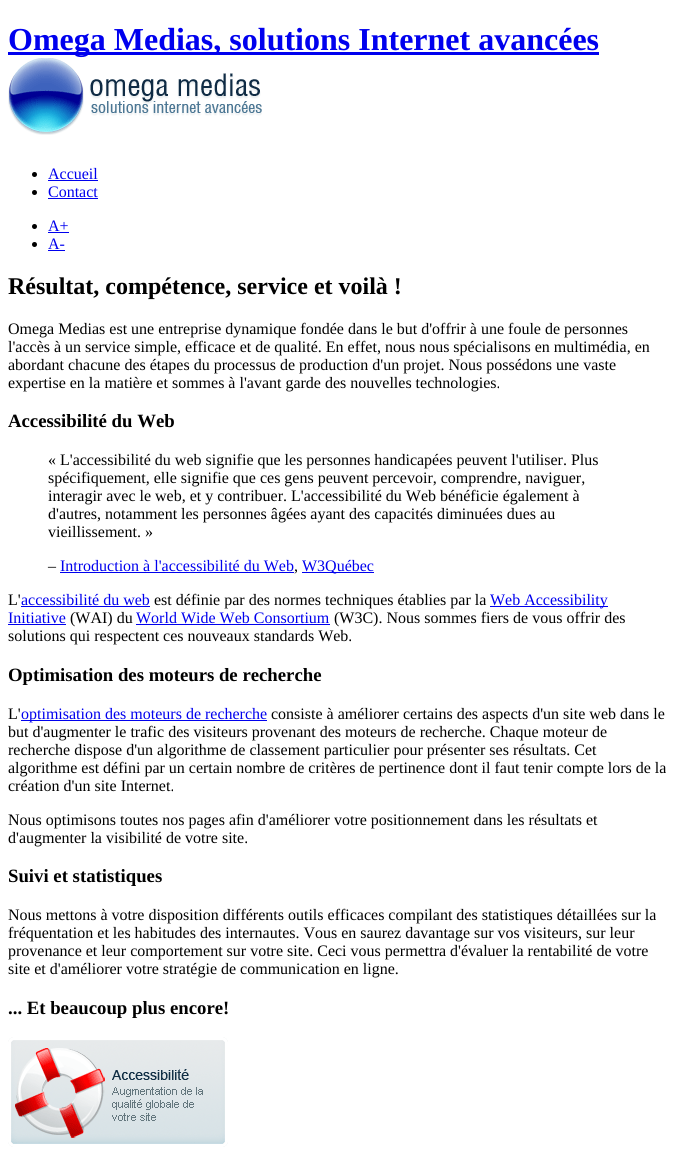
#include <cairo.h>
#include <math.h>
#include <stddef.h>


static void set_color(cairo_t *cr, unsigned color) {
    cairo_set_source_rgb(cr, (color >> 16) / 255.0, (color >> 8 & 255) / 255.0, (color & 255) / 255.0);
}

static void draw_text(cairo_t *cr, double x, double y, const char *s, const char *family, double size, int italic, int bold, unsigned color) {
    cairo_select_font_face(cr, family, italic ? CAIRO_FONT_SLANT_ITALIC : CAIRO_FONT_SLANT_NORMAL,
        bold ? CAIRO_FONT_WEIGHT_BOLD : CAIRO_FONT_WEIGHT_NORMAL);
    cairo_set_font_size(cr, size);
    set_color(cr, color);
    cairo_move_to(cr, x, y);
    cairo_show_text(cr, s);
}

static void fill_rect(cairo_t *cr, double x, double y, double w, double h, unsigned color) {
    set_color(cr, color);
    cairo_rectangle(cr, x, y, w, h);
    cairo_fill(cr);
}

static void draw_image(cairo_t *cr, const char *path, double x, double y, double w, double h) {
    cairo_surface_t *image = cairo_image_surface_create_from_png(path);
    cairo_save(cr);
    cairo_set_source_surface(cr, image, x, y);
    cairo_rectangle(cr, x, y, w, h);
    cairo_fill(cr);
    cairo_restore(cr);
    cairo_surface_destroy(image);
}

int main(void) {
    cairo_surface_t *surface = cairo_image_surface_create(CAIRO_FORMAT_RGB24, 675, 1151);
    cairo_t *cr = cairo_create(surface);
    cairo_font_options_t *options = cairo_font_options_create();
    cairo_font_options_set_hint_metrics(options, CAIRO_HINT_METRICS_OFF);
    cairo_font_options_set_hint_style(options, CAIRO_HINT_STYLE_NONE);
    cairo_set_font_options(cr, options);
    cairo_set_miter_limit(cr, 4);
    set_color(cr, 0xFFFFFF);
    cairo_paint(cr);
    fill_rect(cr, 8, 52, 591, 3, 0x0000EE);
    draw_text(cr, 8, 50, "Omega Medias, solutions Internet avancées", "Liberation Serif", 32, 0, 1, 0x0000EE);
    draw_image(cr, "assets/img1.png", 8, 58, 254, 77);
    set_color(cr, 0x000000);
    cairo_arc(cr, 34.5, 174.5, 2.5, 0, 2 * M_PI);
    cairo_fill(cr);
    draw_text(cr, 48, 179, "Accueil", "Liberation Serif", 16, 0, 0, 0x0000EE);
    fill_rect(cr, 48, 180, 50, 1, 0x0000EE);
    set_color(cr, 0x000000);
    cairo_new_path(cr);
    cairo_arc(cr, 34.5, 192.5, 2.5, 0, 2 * M_PI);
    cairo_fill(cr);
    draw_text(cr, 48, 197, "Contact", "Liberation Serif", 16, 0, 0, 0x0000EE);
    fill_rect(cr, 48, 198, 50, 1, 0x0000EE);
    set_color(cr, 0x000000);
    cairo_new_path(cr);
    cairo_arc(cr, 34.5, 226.5, 2.5, 0, 2 * M_PI);
    cairo_fill(cr);
    draw_text(cr, 48, 231, "A+", "Liberation Serif", 16, 0, 0, 0x0000EE);
    fill_rect(cr, 48, 232, 21, 1, 0x0000EE);
    set_color(cr, 0x000000);
    cairo_new_path(cr);
    cairo_arc(cr, 34.5, 244.5, 2.5, 0, 2 * M_PI);
    cairo_fill(cr);
    draw_text(cr, 48, 249, "A-", "Liberation Serif", 16, 0, 0, 0x0000EE);
    fill_rect(cr, 48, 250, 17, 1, 0x0000EE);
    draw_text(cr, 8, 294, "Résultat, compétence, service et voilà !", "Liberation Serif", 24, 0, 1, 0x000000);
    draw_text(cr, 8, 334, "Omega Medias est une entreprise dynamique fondée dans le but d'offrir à une foule de personnes", "Liberation Serif", 16, 0, 0, 0x000000);
    draw_text(cr, 8, 352, "l'accès à un service simple, efficace et de qualité. En effet, nous nous spécialisons en multimédia, en", "Liberation Serif", 16, 0, 0, 0x000000);
    draw_text(cr, 8, 370, "abordant chacune des étapes du processus de production d'un projet. Nous possédons une vaste", "Liberation Serif", 16, 0, 0, 0x000000);
    draw_text(cr, 8, 388, "expertise en la matière et sommes à l'avant garde des nouvelles technologies.", "Liberation Serif", 16, 0, 0, 0x000000);
    draw_text(cr, 8, 427, "Accessibilité du Web", "Liberation Serif", 18.75, 0, 1, 0x000000);
    draw_text(cr, 48, 465, "« L'accessibilité du web signifie que les personnes handicapées peuvent l'utiliser. Plus", "Liberation Serif", 16, 0, 0, 0x000000);
    draw_text(cr, 48, 483, "spécifiquement, elle signifie que ces gens peuvent percevoir, comprendre, naviguer,", "Liberation Serif", 16, 0, 0, 0x000000);
    draw_text(cr, 48, 501, "interagir avec le web, et y contribuer. L'accessibilité du Web bénéficie également à", "Liberation Serif", 16, 0, 0, 0x000000);
    draw_text(cr, 48, 519, "d'autres, notamment les personnes âgées ayant des capacités diminuées dues au", "Liberation Serif", 16, 0, 0, 0x000000);
    draw_text(cr, 48, 537, "vieillissement. »", "Liberation Serif", 16, 0, 0, 0x000000);
    draw_text(cr, 48, 571, "–", "Liberation Serif", 16, 0, 0, 0x000000);
    draw_text(cr, 60, 571, "Introduction à l'accessibilité du Web", "Liberation Serif", 16, 0, 0, 0x0000EE);
    fill_rect(cr, 60, 572, 234, 1, 0x0000EE);
    fill_rect(cr, 302, 572, 72, 1, 0x0000EE);
    draw_text(cr, 302, 571, "W3Québec", "Liberation Serif", 16, 0, 0, 0x0000EE);
    draw_text(cr, 294, 571, ",", "Liberation Serif", 16, 0, 0, 0x000000);
    draw_text(cr, 8, 605, "L'", "Liberation Serif", 16, 0, 0, 0x000000);
    draw_text(cr, 21, 605, "accessibilité du web", "Liberation Serif", 16, 0, 0, 0x0000EE);
    fill_rect(cr, 21, 606, 129, 1, 0x0000EE);
    draw_text(cr, 154, 605, "est définie par des normes techniques établies par la", "Liberation Serif", 16, 0, 0, 0x000000);
    fill_rect(cr, 490, 606, 118, 1, 0x0000EE);
    draw_text(cr, 490, 605, "Web Accessibility", "Liberation Serif", 16, 0, 0, 0x0000EE);
    draw_text(cr, 8, 623, "Initiative", "Liberation Serif", 16, 0, 0, 0x0000EE);
    fill_rect(cr, 8, 624, 58, 1, 0x0000EE);
    draw_text(cr, 70, 623, "(WAI) du", "Liberation Serif", 16, 0, 0, 0x000000);
    draw_text(cr, 136, 623, "World Wide Web Consortium", "Liberation Serif", 16, 0, 0, 0x0000EE);
    fill_rect(cr, 136, 624, 194, 1, 0x0000EE);
    draw_text(cr, 334, 623, "(W3C). Nous sommes fiers de vous offrir des", "Liberation Serif", 16, 0, 0, 0x000000);
    draw_text(cr, 8, 641, "solutions qui respectent ces nouveaux standards Web.", "Liberation Serif", 16, 0, 0, 0x000000);
    draw_text(cr, 8, 681, "Optimisation des moteurs de recherche", "Liberation Serif", 18.75, 0, 1, 0x000000);
    draw_text(cr, 8, 719, "L'", "Liberation Serif", 16, 0, 0, 0x000000);
    fill_rect(cr, 21, 720, 246, 1, 0x0000EE);
    draw_text(cr, 21, 719, "optimisation des moteurs de recherche", "Liberation Serif", 16, 0, 0, 0x0000EE);
    draw_text(cr, 271, 719, "consiste à améliorer certains des aspects d'un site web dans le", "Liberation Serif", 16, 0, 0, 0x000000);
    draw_text(cr, 8, 737, "but d'augmenter le trafic des visiteurs provenant des moteurs de recherche. Chaque moteur de", "Liberation Serif", 16, 0, 0, 0x000000);
    draw_text(cr, 8, 755, "recherche dispose d'un algorithme de classement particulier pour présenter ses résultats. Cet", "Liberation Serif", 16, 0, 0, 0x000000);
    draw_text(cr, 8, 773, "algorithme est défini par un certain nombre de critères de pertinence dont il faut tenir compte lors de la", "Liberation Serif", 16, 0, 0, 0x000000);
    draw_text(cr, 8, 791, "création d'un site Internet.", "Liberation Serif", 16, 0, 0, 0x000000);
    draw_text(cr, 8, 825, "Nous optimisons toutes nos pages afin d'améliorer votre positionnement dans les résultats et", "Liberation Serif", 16, 0, 0, 0x000000);
    draw_text(cr, 8, 843, "d'augmenter la visibilité de votre site.", "Liberation Serif", 16, 0, 0, 0x000000);
    draw_text(cr, 8, 882, "Suivi et statistiques", "Liberation Serif", 18.75, 0, 1, 0x000000);
    draw_text(cr, 8, 920, "Nous mettons à votre disposition différents outils efficaces compilant des statistiques détaillées sur la", "Liberation Serif", 16, 0, 0, 0x000000);
    draw_text(cr, 8, 938, "fréquentation et les habitudes des internautes. Vous en saurez davantage sur vos visiteurs, sur leur", "Liberation Serif", 16, 0, 0, 0x000000);
    draw_text(cr, 8, 956, "provenance et leur comportement sur votre site. Ceci vous permettra d'évaluer la rentabilité de votre", "Liberation Serif", 16, 0, 0, 0x000000);
    draw_text(cr, 8, 974, "site et d'améliorer votre stratégie de communication en ligne.", "Liberation Serif", 16, 0, 0, 0x000000);
    draw_text(cr, 8, 1014, "... Et beaucoup plus encore!", "Liberation Serif", 18.75, 0, 1, 0x000000);
    draw_image(cr, "assets/img2.png", 8, 1037, 220, 110);
    cairo_surface_write_to_png(surface, "output.png");
    cairo_font_options_destroy(options);
    cairo_destroy(cr);
    cairo_surface_destroy(surface);
    return 0;
}
